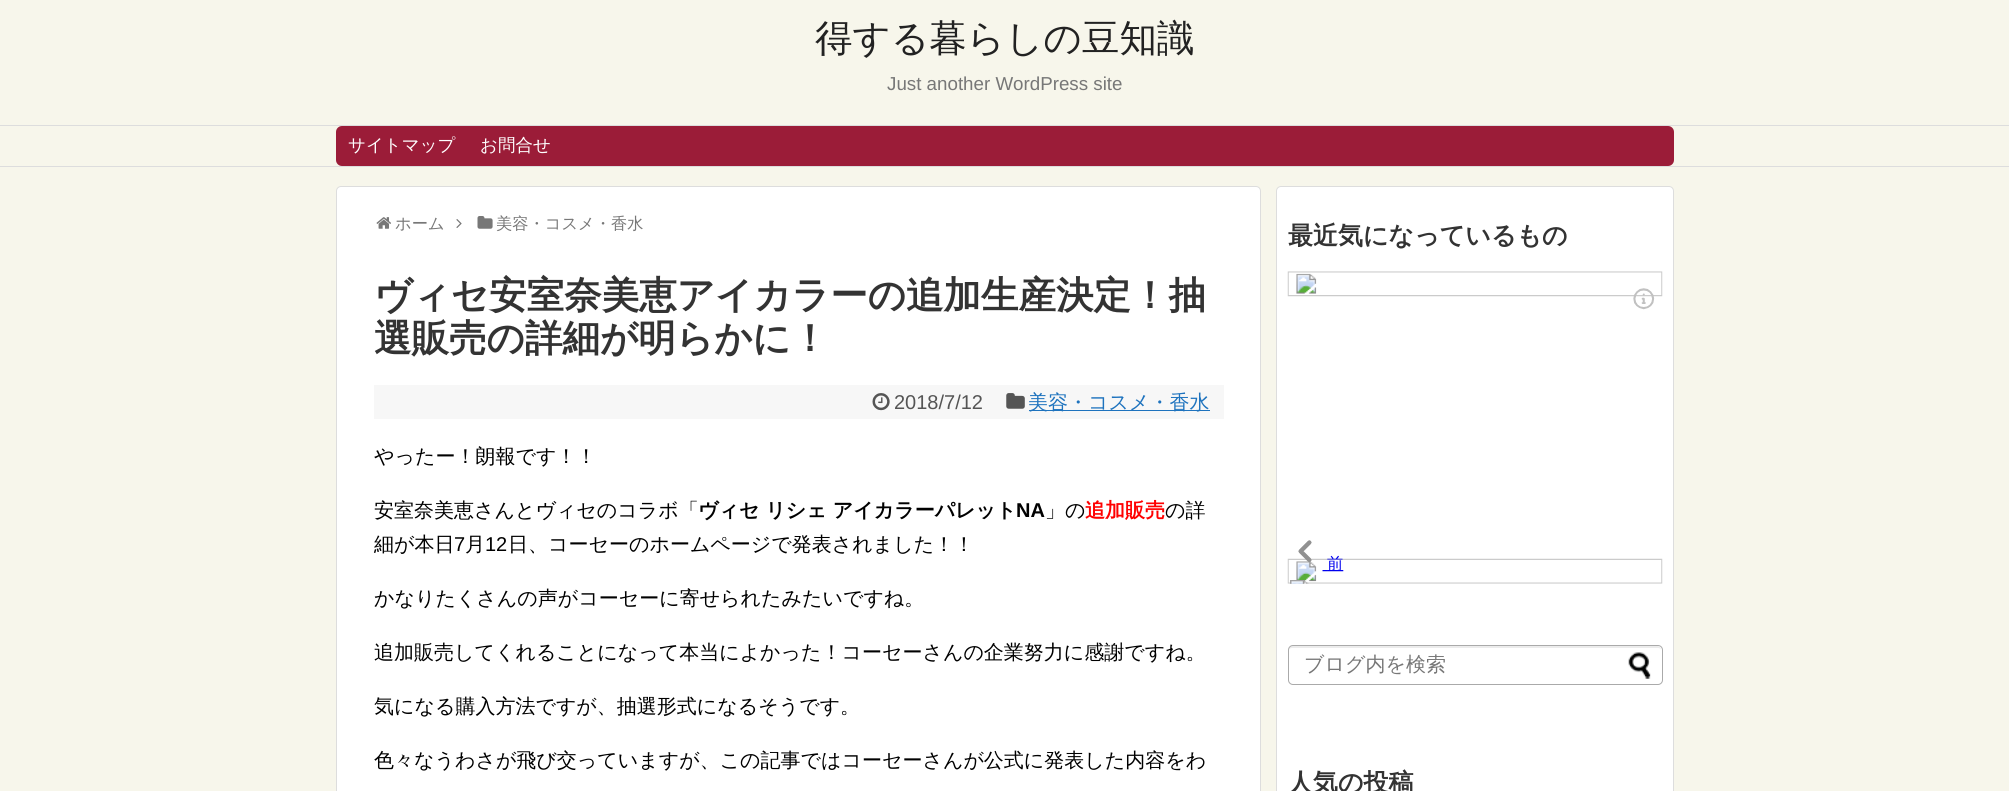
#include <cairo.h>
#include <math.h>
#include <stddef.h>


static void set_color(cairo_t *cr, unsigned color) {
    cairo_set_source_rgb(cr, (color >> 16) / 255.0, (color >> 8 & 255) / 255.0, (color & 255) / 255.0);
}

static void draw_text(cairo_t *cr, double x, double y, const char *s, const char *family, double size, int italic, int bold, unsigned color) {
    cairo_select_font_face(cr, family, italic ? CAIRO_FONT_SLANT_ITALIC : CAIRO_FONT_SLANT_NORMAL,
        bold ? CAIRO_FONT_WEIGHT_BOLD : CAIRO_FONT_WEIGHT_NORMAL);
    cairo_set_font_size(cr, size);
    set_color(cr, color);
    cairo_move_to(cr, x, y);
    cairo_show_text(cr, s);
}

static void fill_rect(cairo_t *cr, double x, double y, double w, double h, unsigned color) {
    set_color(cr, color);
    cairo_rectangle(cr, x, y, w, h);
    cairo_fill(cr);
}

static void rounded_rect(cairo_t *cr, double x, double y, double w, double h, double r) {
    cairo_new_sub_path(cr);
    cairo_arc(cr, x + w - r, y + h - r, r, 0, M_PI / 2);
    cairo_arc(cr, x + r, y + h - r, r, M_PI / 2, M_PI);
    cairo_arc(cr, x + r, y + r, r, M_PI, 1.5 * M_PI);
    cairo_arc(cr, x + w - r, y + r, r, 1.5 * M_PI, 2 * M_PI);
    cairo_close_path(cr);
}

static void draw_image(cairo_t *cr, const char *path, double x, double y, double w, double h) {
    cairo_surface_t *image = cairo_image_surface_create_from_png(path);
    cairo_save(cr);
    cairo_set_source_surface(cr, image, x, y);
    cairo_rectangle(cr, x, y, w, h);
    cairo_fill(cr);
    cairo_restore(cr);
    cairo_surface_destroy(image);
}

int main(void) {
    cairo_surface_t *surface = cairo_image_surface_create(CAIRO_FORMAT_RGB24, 2009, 791);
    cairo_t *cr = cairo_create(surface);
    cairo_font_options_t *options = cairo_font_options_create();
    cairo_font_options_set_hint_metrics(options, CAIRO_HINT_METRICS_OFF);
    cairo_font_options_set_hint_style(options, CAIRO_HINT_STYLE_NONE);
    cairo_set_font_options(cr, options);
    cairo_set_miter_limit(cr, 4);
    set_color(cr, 0xF7F6EB);
    cairo_paint(cr);
    draw_text(cr, 815, 51, "得する暮らしの豆知識", "WenQuanYi Zen Hei Medium", 37.5, 0, 0, 0x222222);
    draw_text(cr, 887, 90, "Just another WordPress site", "Liberation Sans", 18.75, 0, 0, 0x777777);
    fill_rect(cr, 0, 125, 2009, 1, 0xDDDDDD);
    fill_rect(cr, 0, 166, 2009, 1, 0xDDDDDD);
    set_color(cr, 0x9B1C38);
    rounded_rect(cr, 336, 126, 1338, 40, 6);
    cairo_fill(cr);
    draw_text(cr, 348, 151, "サイトマップ", "WenQuanYi Zen Hei Medium", 17.5, 0, 0, 0xFFFFFF);
    draw_text(cr, 480, 151, "お問合せ", "WenQuanYi Zen Hei Medium", 17.5, 0, 0, 0xFFFFFF);
    rounded_rect(cr, 336.5, 186.5, 924, 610, 4.5);
    cairo_fill_preserve(cr);
    set_color(cr, 0xDDDDDD);
    cairo_set_line_width(cr, 1);
    cairo_stroke(cr);
    draw_image(cr, "assets/img1.png", 376, 217, 15, 12);
    draw_text(cr, 395, 229, "ホーム", "WenQuanYi Zen Hei Medium", 16.25, 0, 0, 0x777777);
    draw_image(cr, "assets/img2.png", 456, 219, 6, 9);
    draw_image(cr, "assets/img3.png", 477, 216, 16, 13);
    draw_text(cr, 496, 229, "美容・コスメ・香水", "WenQuanYi Zen Hei Medium", 16.25, 0, 0, 0x777777);
    draw_text(cr, 374, 308, "ヴィセ安室奈美恵アイカラーの追加生産決定！抽", "WenQuanYi Zen Hei", 37.5, 0, 1, 0x333333);
    draw_text(cr, 374, 351, "選販売の詳細が明らかに！", "WenQuanYi Zen Hei", 37.5, 0, 1, 0x333333);
    fill_rect(cr, 374, 385, 850, 34, 0xF7F7F7);
    draw_image(cr, "assets/img4.png", 872, 393, 18, 18);
    draw_text(cr, 894, 409, "2018/7/12", "Liberation Sans", 20, 0, 0, 0x555555);
    draw_image(cr, "assets/img5.png", 1006, 393, 19, 16);
    fill_rect(cr, 1029, 410, 181, 1, 0x1E73BE);
    draw_text(cr, 1028, 409, "美容・コスメ・香水", "WenQuanYi Zen Hei Medium", 20, 0, 0, 0x1E73BE);
    draw_text(cr, 374, 463, "やったー！朗報です！！", "WenQuanYi Zen Hei Medium", 20, 0, 0, 0x000000);
    draw_text(cr, 374, 517, "安室奈美恵さんとヴィセのコラボ「", "WenQuanYi Zen Hei Medium", 20, 0, 0, 0x000000);
    draw_text(cr, 698, 517, "ヴィセ リシェ アイカラーパレット", "WenQuanYi Zen Hei", 20, 0, 1, 0x000000);
    draw_text(cr, 1016, 517, "NA", "Liberation Sans", 20, 0, 1, 0x000000);
    draw_text(cr, 1045, 517, "」の", "WenQuanYi Zen Hei Medium", 20, 0, 0, 0x000000);
    draw_text(cr, 1085, 517, "追加販売", "WenQuanYi Zen Hei", 20, 0, 1, 0xFF0000);
    draw_text(cr, 1165, 517, "の詳", "WenQuanYi Zen Hei Medium", 20, 0, 0, 0x000000);
    draw_text(cr, 374, 551, "細が本日", "WenQuanYi Zen Hei Medium", 20, 0, 0, 0x000000);
    draw_text(cr, 454, 551, "7", "Liberation Sans", 20, 0, 0, 0x000000);
    draw_text(cr, 465, 551, "月", "WenQuanYi Zen Hei Medium", 20, 0, 0, 0x000000);
    draw_text(cr, 485, 551, "12", "Liberation Sans", 20, 0, 0, 0x000000);
    draw_text(cr, 508, 551, "日、コーセーのホームページで発表されました！！", "WenQuanYi Zen Hei Medium", 20, 0, 0, 0x000000);
    draw_text(cr, 374, 605, "かなりたくさんの声がコーセーに寄せられたみたいですね。", "WenQuanYi Zen Hei Medium", 20, 0, 0, 0x000000);
    draw_text(cr, 374, 659, "追加販売してくれることになって本当によかった！コーセーさんの企業努力に感謝ですね。", "WenQuanYi Zen Hei Medium", 20, 0, 0, 0x000000);
    draw_text(cr, 374, 713, "気になる購入方法ですが、抽選形式になるそうです。", "WenQuanYi Zen Hei Medium", 20, 0, 0, 0x000000);
    draw_text(cr, 374, 767, "色々なうわさが飛び交っていますが、この記事ではコーセーさんが公式に発表した内容をわ", "WenQuanYi Zen Hei Medium", 20, 0, 0, 0x000000);
    set_color(cr, 0xFFFFFF);
    rounded_rect(cr, 1276.5, 186.5, 397, 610, 4.5);
    cairo_fill_preserve(cr);
    set_color(cr, 0xDDDDDD);
    cairo_stroke(cr);
    draw_text(cr, 1288, 244, "最近気になっているもの", "WenQuanYi Zen Hei", 25, 0, 1, 0x333333);
    draw_image(cr, "assets/img6.png", 1287, 271, 376, 313);
    set_color(cr, 0xECECEC);
    cairo_new_path(cr);
    cairo_move_to(cr, 1292, 648);
    cairo_line_to(cr, 1658, 648);
    cairo_curve_to(cr, 1660, 648, 1661, 649, 1661, 651);
    cairo_curve_to(cr, 1661, 648, 1660, 646, 1657, 646);
    cairo_line_to(cr, 1293, 646);
    cairo_curve_to(cr, 1290, 646, 1289, 648, 1289, 651);
    cairo_curve_to(cr, 1289, 649, 1290, 648, 1292, 648);
    cairo_close_path(cr);
    cairo_fill(cr);
    rounded_rect(cr, 1288.5, 645.5, 374, 39, 4.5);
    set_color(cr, 0xAAAAAA);
    cairo_stroke(cr);
    draw_text(cr, 1304, 671, "ブログ内を検索", "WenQuanYi Zen Hei Medium", 20, 0, 0, 0x777777);
    draw_image(cr, "assets/img7.png", 1628, 652, 23, 27);
    draw_text(cr, 1288, 791, "人気の投稿", "WenQuanYi Zen Hei", 25, 0, 1, 0x333333);
    cairo_surface_write_to_png(surface, "output.png");
    cairo_font_options_destroy(options);
    cairo_destroy(cr);
    cairo_surface_destroy(surface);
    return 0;
}
